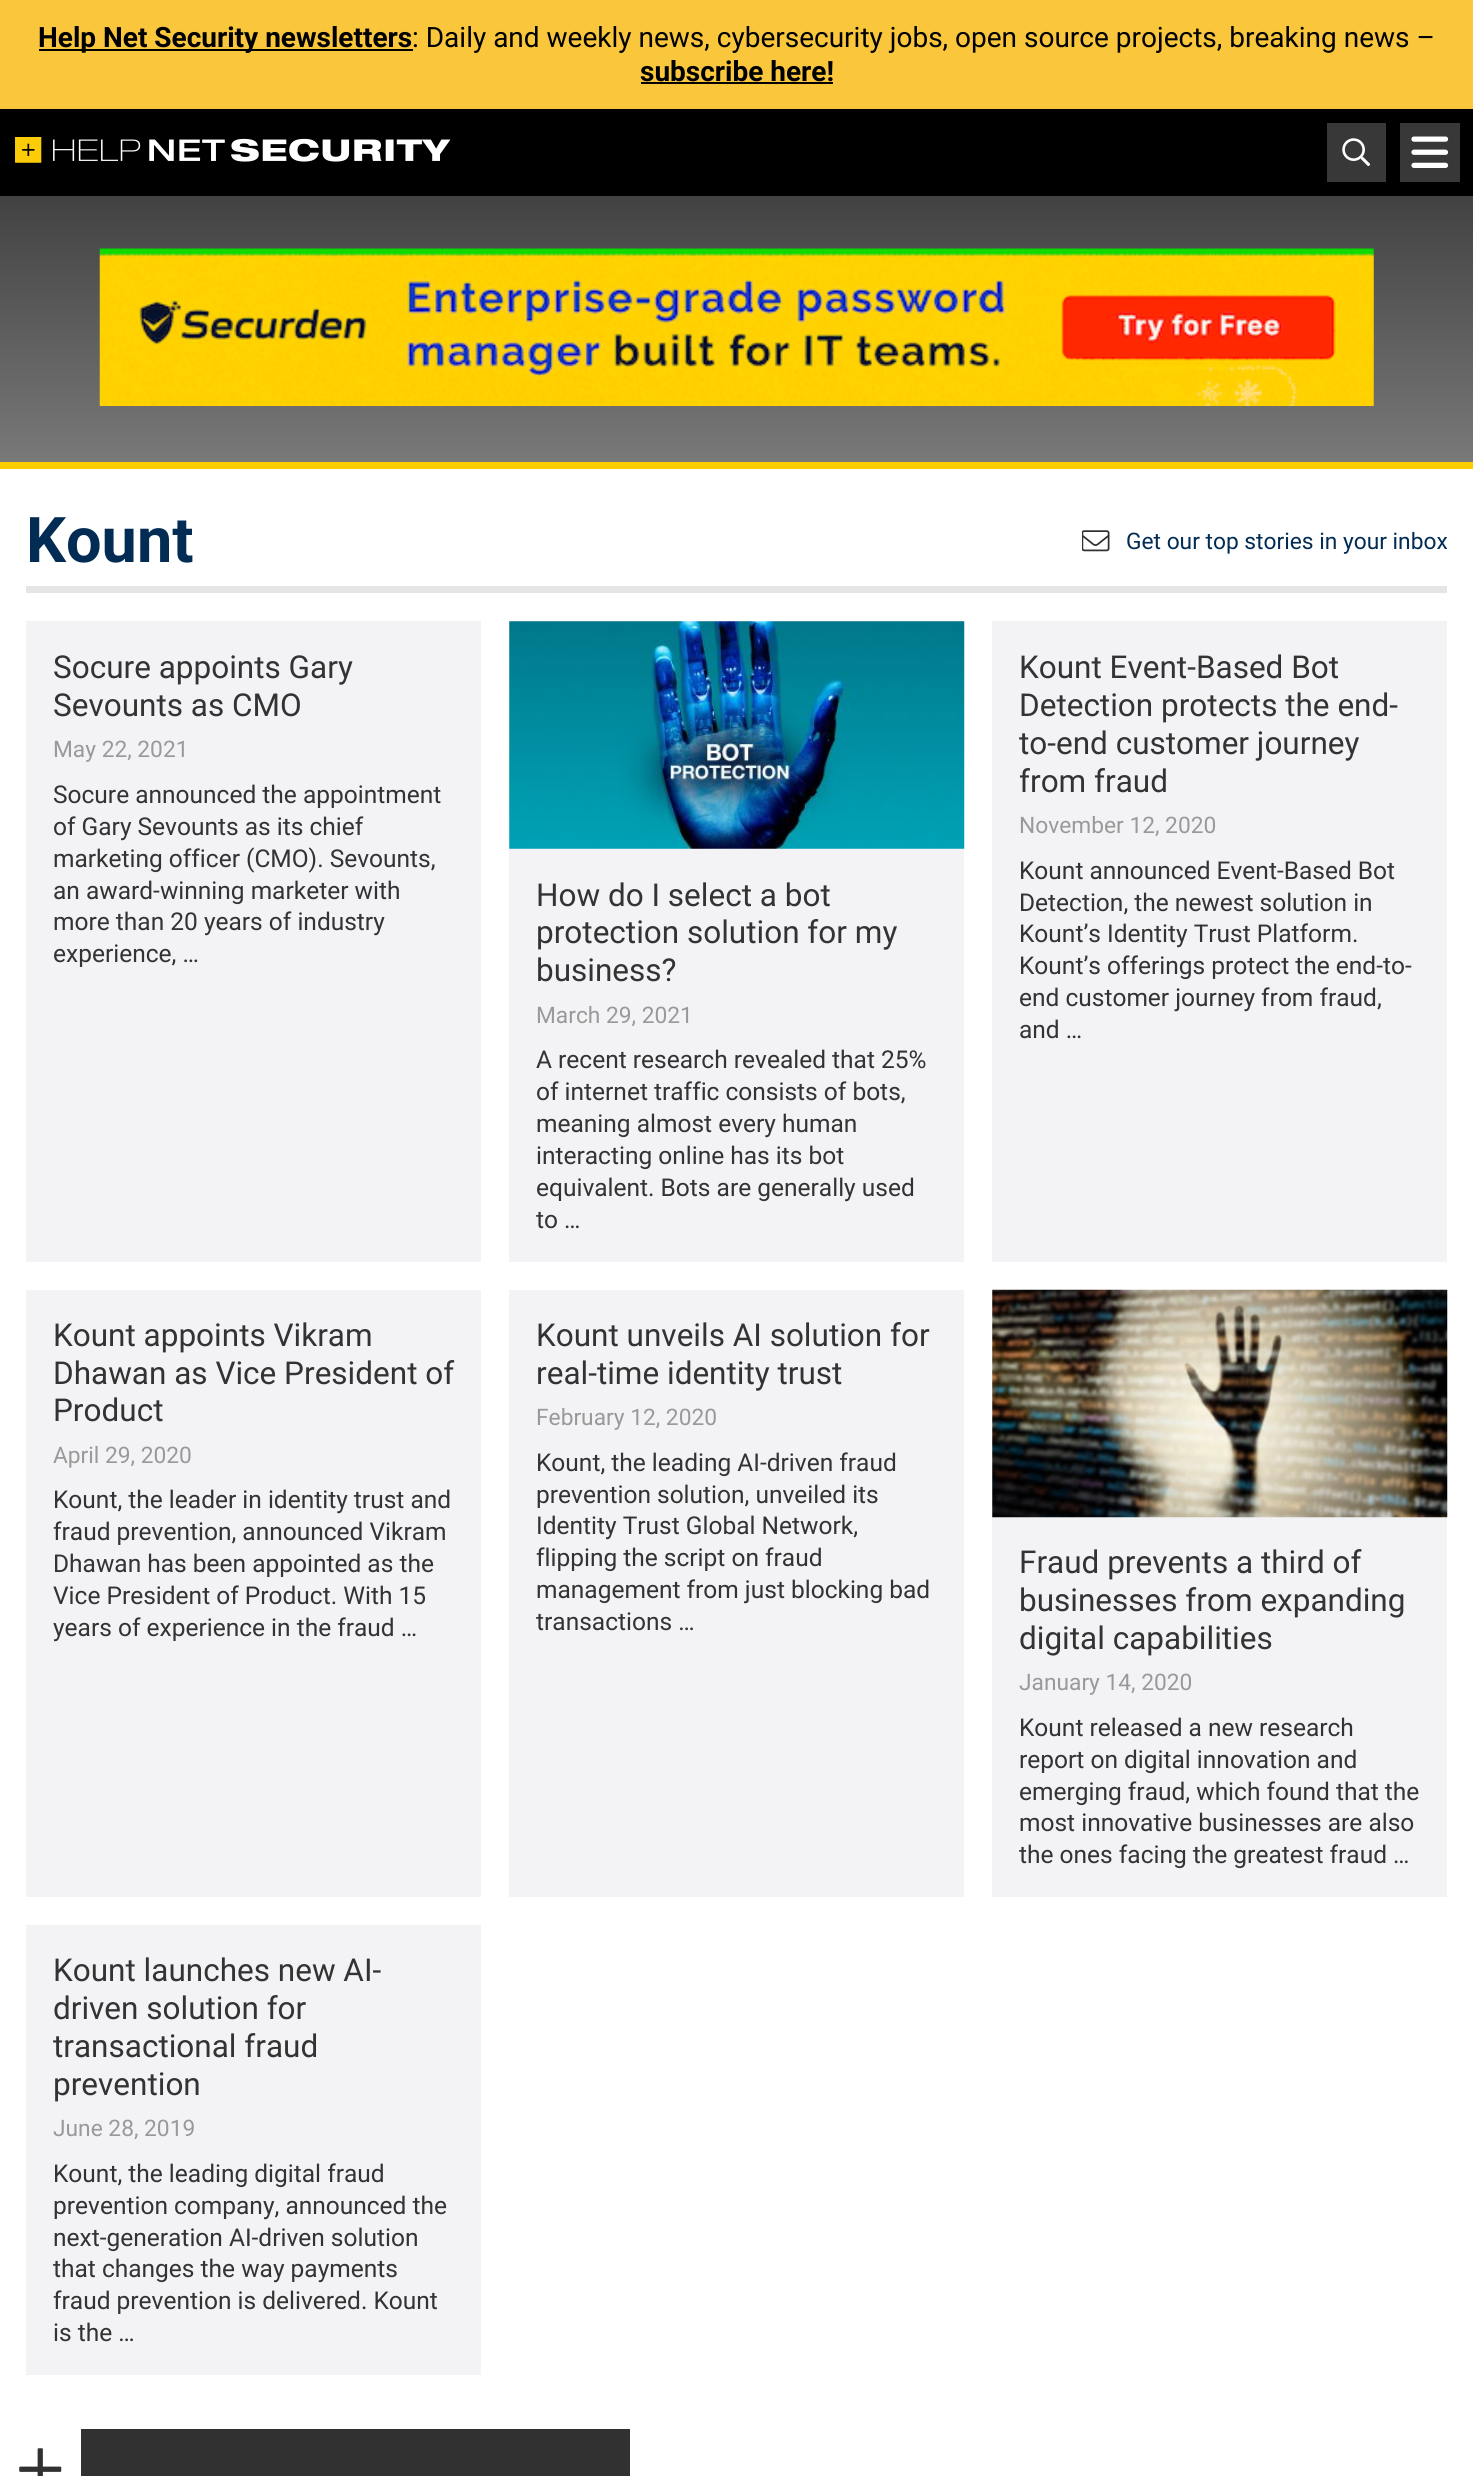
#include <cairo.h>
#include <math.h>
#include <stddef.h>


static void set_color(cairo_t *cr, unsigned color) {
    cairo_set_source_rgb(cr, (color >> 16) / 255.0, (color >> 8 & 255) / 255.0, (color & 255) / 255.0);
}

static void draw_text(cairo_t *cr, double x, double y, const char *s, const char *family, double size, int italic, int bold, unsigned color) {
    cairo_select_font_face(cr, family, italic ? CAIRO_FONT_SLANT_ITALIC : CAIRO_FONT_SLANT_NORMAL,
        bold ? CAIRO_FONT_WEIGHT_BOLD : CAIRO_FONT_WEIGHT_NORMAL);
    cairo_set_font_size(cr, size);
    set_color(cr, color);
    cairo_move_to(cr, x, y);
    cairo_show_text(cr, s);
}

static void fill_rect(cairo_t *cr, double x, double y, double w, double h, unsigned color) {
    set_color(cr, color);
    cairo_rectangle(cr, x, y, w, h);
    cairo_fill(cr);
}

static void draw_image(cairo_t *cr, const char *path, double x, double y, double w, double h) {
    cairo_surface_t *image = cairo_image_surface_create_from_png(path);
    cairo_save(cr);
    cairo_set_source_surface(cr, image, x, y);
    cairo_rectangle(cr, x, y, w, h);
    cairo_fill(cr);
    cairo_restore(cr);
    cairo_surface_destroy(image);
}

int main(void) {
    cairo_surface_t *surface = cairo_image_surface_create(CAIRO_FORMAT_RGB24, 1473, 2476);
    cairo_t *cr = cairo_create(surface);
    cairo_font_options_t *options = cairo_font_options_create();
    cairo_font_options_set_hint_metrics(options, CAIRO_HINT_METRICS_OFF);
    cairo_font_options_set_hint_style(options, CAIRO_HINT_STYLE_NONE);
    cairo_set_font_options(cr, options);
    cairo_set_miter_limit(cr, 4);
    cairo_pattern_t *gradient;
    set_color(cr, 0xFFFFFF);
    cairo_paint(cr);
    gradient = cairo_pattern_create_linear(737, 0, 737, 1400);
    cairo_pattern_add_color_stop_rgba(gradient, 0, 0.102, 0.102, 0.102, 1);
    cairo_pattern_add_color_stop_rgba(gradient, 0.8, 1, 1, 1, 1);
    cairo_set_source(cr, gradient);
    cairo_pattern_destroy(gradient);
    cairo_rectangle(cr, 0, 196, 1473, 266);
    cairo_fill(cr);
    fill_rect(cr, 0, 0, 1473, 109, 0xF9C63C);
    fill_rect(cr, 39, 49, 374, 2, 0x000000);
    draw_text(cr, 38, 47, "Help Net Security newsletters", "Roboto", 28, 0, 1, 0x000000);
    draw_text(cr, 412, 47, ": Daily and weekly news, cybersecurity jobs, open source projects, breaking news –", "Roboto", 28, 0, 0, 0x000000);
    draw_text(cr, 640, 81, "subscribe here!", "Roboto", 28, 0, 1, 0x000000);
    fill_rect(cr, 641, 82, 192, 2, 0x000000);
    fill_rect(cr, 0, 109, 1473, 87, 0x000000);
    draw_image(cr, "assets/img1.png", 15, 137, 436, 26);
    fill_rect(cr, 1327, 123, 59, 59, 0x393838);
    draw_image(cr, "assets/img2.png", 1342, 138, 28, 28);
    fill_rect(cr, 1400, 123, 60, 59, 0x393838);
    draw_image(cr, "assets/img3.png", 1411, 136, 38, 32);
    draw_image(cr, "assets/img4.png", 99, 248, 1275, 158);
    fill_rect(cr, 0, 462, 1473, 7, 0xFDCD00);
    fill_rect(cr, 26, 586, 1421, 7, 0xE5E5E5);
    draw_text(cr, 26, 562, "Kount", "Roboto", 63, 0, 1, 0x032C55);
    draw_image(cr, "assets/img5.png", 1082, 530, 28, 22);
    draw_text(cr, 1126, 549, "Get our top stories in your inbox", "Roboto", 22.75, 0, 0, 0x032C55);
    fill_rect(cr, 26, 621, 455, 641, 0xF3F3F6);
    draw_text(cr, 53, 678, "Socure appoints Gary", "Roboto", 31.5, 0, 0, 0x333333);
    draw_text(cr, 53, 716, "Sevounts as CMO", "Roboto", 31.5, 0, 0, 0x333333);
    draw_text(cr, 53, 757, "May 22, 2021", "Roboto", 22.75, 0, 0, 0x999999);
    draw_text(cr, 53, 803, "Socure announced the appointment", "Roboto", 24.5, 0, 0, 0x333333);
    draw_text(cr, 53, 835, "of Gary Sevounts as its chief", "Roboto", 24.5, 0, 0, 0x333333);
    draw_text(cr, 53, 867, "marketing officer (CMO). Sevounts,", "Roboto", 24.5, 0, 0, 0x333333);
    draw_text(cr, 53, 899, "an award-winning marketer with", "Roboto", 24.5, 0, 0, 0x333333);
    draw_text(cr, 53, 930, "more than 20 years of industry", "Roboto", 24.5, 0, 0, 0x333333);
    draw_text(cr, 53, 962, "experience, …", "Roboto", 24.5, 0, 0, 0x333333);
    fill_rect(cr, 992, 621, 455, 641, 0xF3F3F6);
    draw_text(cr, 1019, 678, "Kount Event-Based Bot", "Roboto", 31.5, 0, 0, 0x333333);
    draw_text(cr, 1019, 716, "Detection protects the end-", "Roboto", 31.5, 0, 0, 0x333333);
    draw_text(cr, 1019, 754, "to-end customer journey", "Roboto", 31.5, 0, 0, 0x333333);
    draw_text(cr, 1019, 792, "from fraud", "Roboto", 31.5, 0, 0, 0x333333);
    draw_text(cr, 1019, 833, "November 12, 2020", "Roboto", 22.75, 0, 0, 0x999999);
    draw_text(cr, 1019, 879, "Kount announced Event-Based Bot", "Roboto", 24.5, 0, 0, 0x333333);
    draw_text(cr, 1019, 911, "Detection, the newest solution in", "Roboto", 24.5, 0, 0, 0x333333);
    draw_text(cr, 1019, 942, "Kount’s Identity Trust Platform.", "Roboto", 24.5, 0, 0, 0x333333);
    draw_text(cr, 1019, 974, "Kount’s offerings protect the end-to-", "Roboto", 24.5, 0, 0, 0x333333);
    draw_text(cr, 1019, 1006, "end customer journey from fraud,", "Roboto", 24.5, 0, 0, 0x333333);
    draw_text(cr, 1019, 1038, "and …", "Roboto", 24.5, 0, 0, 0x333333);
    fill_rect(cr, 509, 621, 455, 641, 0xF3F3F6);
    draw_image(cr, "assets/img6.png", 509, 621, 456, 228);
    draw_text(cr, 536, 906, "How do I select a bot", "Roboto", 31.5, 0, 0, 0x333333);
    draw_text(cr, 536, 943, "protection solution for my", "Roboto", 31.5, 0, 0, 0x333333);
    draw_text(cr, 536, 981, "business?", "Roboto", 31.5, 0, 0, 0x333333);
    draw_text(cr, 536, 1023, "March 29, 2021", "Roboto", 22.75, 0, 0, 0x999999);
    draw_text(cr, 536, 1068, "A recent research revealed that 25%", "Roboto", 24.5, 0, 0, 0x333333);
    draw_text(cr, 536, 1100, "of internet traffic consists of bots,", "Roboto", 24.5, 0, 0, 0x333333);
    draw_text(cr, 536, 1132, "meaning almost every human", "Roboto", 24.5, 0, 0, 0x333333);
    draw_text(cr, 536, 1164, "interacting online has its bot", "Roboto", 24.5, 0, 0, 0x333333);
    draw_text(cr, 536, 1196, "equivalent. Bots are generally used", "Roboto", 24.5, 0, 0, 0x333333);
    draw_text(cr, 536, 1228, "to …", "Roboto", 24.5, 0, 0, 0x333333);
    fill_rect(cr, 26, 1290, 455, 607, 0xF3F3F6);
    draw_text(cr, 53, 1346, "Kount appoints Vikram", "Roboto", 31.5, 0, 0, 0x333333);
    draw_text(cr, 53, 1384, "Dhawan as Vice President of", "Roboto", 31.5, 0, 0, 0x333333);
    draw_text(cr, 53, 1421, "Product", "Roboto", 31.5, 0, 0, 0x333333);
    draw_text(cr, 53, 1463, "April 29, 2020", "Roboto", 22.75, 0, 0, 0x999999);
    draw_text(cr, 53, 1508, "Kount, the leader in identity trust and", "Roboto", 24.5, 0, 0, 0x333333);
    draw_text(cr, 53, 1540, "fraud prevention, announced Vikram", "Roboto", 24.5, 0, 0, 0x333333);
    draw_text(cr, 53, 1572, "Dhawan has been appointed as the", "Roboto", 24.5, 0, 0, 0x333333);
    draw_text(cr, 53, 1604, "Vice President of Product. With 15", "Roboto", 24.5, 0, 0, 0x333333);
    draw_text(cr, 53, 1636, "years of experience in the fraud …", "Roboto", 24.5, 0, 0, 0x333333);
    fill_rect(cr, 509, 1290, 455, 607, 0xF3F3F6);
    draw_text(cr, 536, 1346, "Kount unveils AI solution for", "Roboto", 31.5, 0, 0, 0x333333);
    draw_text(cr, 536, 1384, "real-time identity trust", "Roboto", 31.5, 0, 0, 0x333333);
    draw_text(cr, 536, 1425, "February 12, 2020", "Roboto", 22.75, 0, 0, 0x999999);
    draw_text(cr, 536, 1471, "Kount, the leading AI-driven fraud", "Roboto", 24.5, 0, 0, 0x333333);
    draw_text(cr, 536, 1503, "prevention solution, unveiled its", "Roboto", 24.5, 0, 0, 0x333333);
    draw_text(cr, 536, 1534, "Identity Trust Global Network,", "Roboto", 24.5, 0, 0, 0x333333);
    draw_text(cr, 536, 1566, "flipping the script on fraud", "Roboto", 24.5, 0, 0, 0x333333);
    draw_text(cr, 536, 1598, "management from just blocking bad", "Roboto", 24.5, 0, 0, 0x333333);
    draw_text(cr, 536, 1630, "transactions …", "Roboto", 24.5, 0, 0, 0x333333);
    fill_rect(cr, 992, 1290, 455, 607, 0xF3F3F6);
    draw_image(cr, "assets/img7.png", 992, 1289, 456, 229);
    draw_text(cr, 1019, 1573, "Fraud prevents a third of", "Roboto", 31.5, 0, 0, 0x333333);
    draw_text(cr, 1019, 1611, "businesses from expanding", "Roboto", 31.5, 0, 0, 0x333333);
    draw_text(cr, 1019, 1649, "digital capabilities", "Roboto", 31.5, 0, 0, 0x333333);
    draw_text(cr, 1019, 1690, "January 14, 2020", "Roboto", 22.75, 0, 0, 0x999999);
    draw_text(cr, 1019, 1736, "Kount released a new research", "Roboto", 24.5, 0, 0, 0x333333);
    draw_text(cr, 1019, 1768, "report on digital innovation and", "Roboto", 24.5, 0, 0, 0x333333);
    draw_text(cr, 1019, 1800, "emerging fraud, which found that the", "Roboto", 24.5, 0, 0, 0x333333);
    draw_text(cr, 1019, 1831, "most innovative businesses are also", "Roboto", 24.5, 0, 0, 0x333333);
    draw_text(cr, 1019, 1863, "the ones facing the greatest fraud …", "Roboto", 24.5, 0, 0, 0x333333);
    fill_rect(cr, 26, 1925, 455, 450, 0xF3F3F6);
    draw_text(cr, 53, 1981, "Kount launches new AI-", "Roboto", 31.5, 0, 0, 0x333333);
    draw_text(cr, 53, 2019, "driven solution for", "Roboto", 31.5, 0, 0, 0x333333);
    draw_text(cr, 53, 2057, "transactional fraud", "Roboto", 31.5, 0, 0, 0x333333);
    draw_text(cr, 53, 2095, "prevention", "Roboto", 31.5, 0, 0, 0x333333);
    draw_text(cr, 53, 2136, "June 28, 2019", "Roboto", 22.75, 0, 0, 0x999999);
    draw_text(cr, 53, 2182, "Kount, the leading digital fraud", "Roboto", 24.5, 0, 0, 0x333333);
    draw_text(cr, 53, 2214, "prevention company, announced the", "Roboto", 24.5, 0, 0, 0x333333);
    draw_text(cr, 53, 2246, "next-generation AI-driven solution", "Roboto", 24.5, 0, 0, 0x333333);
    draw_text(cr, 53, 2277, "that changes the way payments", "Roboto", 24.5, 0, 0, 0x333333);
    draw_text(cr, 53, 2309, "fraud prevention is delivered. Kount", "Roboto", 24.5, 0, 0, 0x333333);
    draw_text(cr, 53, 2341, "is the …", "Roboto", 24.5, 0, 0, 0x333333);
    fill_rect(cr, 81, 2429, 549, 47, 0x313131);
    draw_image(cr, "assets/img8.png", 19, 2448, 43, 28);
    cairo_surface_write_to_png(surface, "output.png");
    cairo_font_options_destroy(options);
    cairo_destroy(cr);
    cairo_surface_destroy(surface);
    return 0;
}
